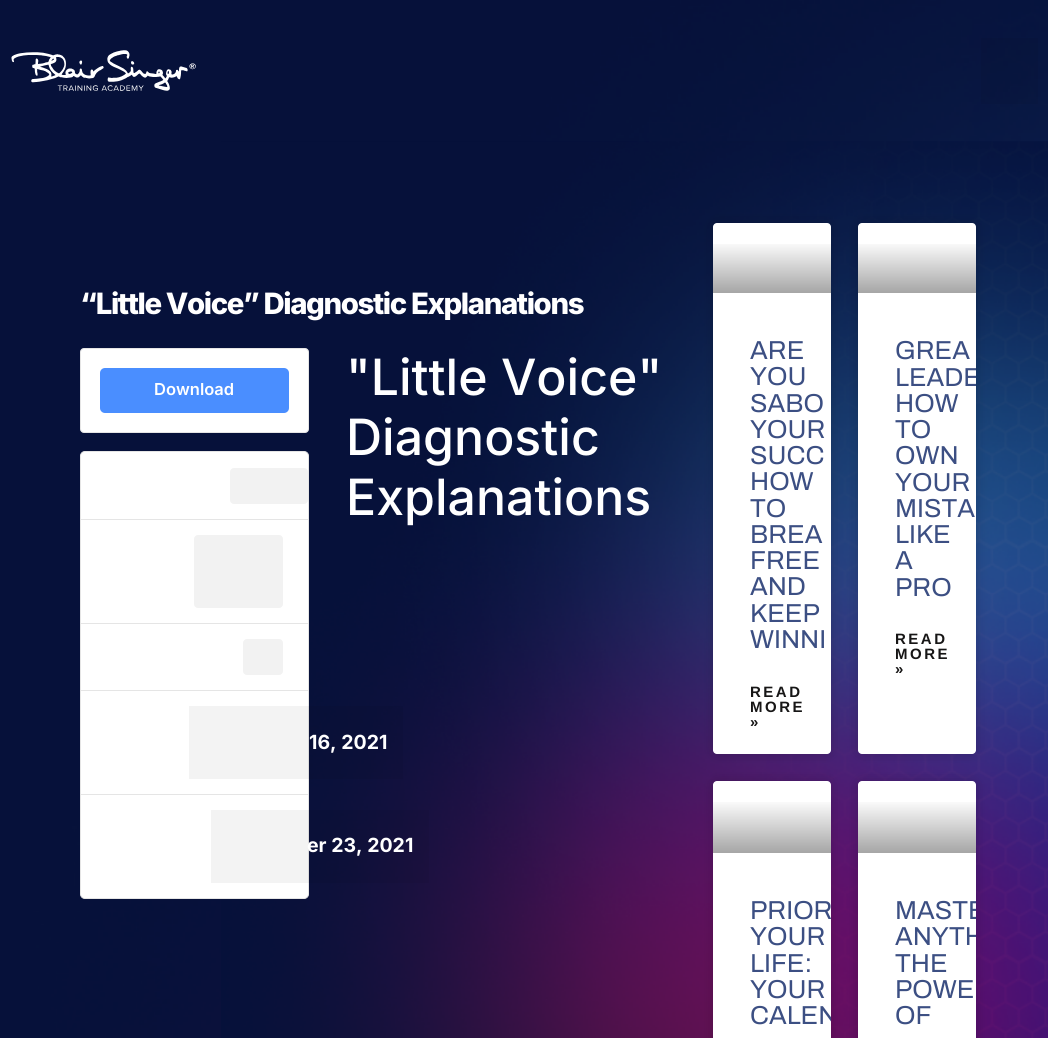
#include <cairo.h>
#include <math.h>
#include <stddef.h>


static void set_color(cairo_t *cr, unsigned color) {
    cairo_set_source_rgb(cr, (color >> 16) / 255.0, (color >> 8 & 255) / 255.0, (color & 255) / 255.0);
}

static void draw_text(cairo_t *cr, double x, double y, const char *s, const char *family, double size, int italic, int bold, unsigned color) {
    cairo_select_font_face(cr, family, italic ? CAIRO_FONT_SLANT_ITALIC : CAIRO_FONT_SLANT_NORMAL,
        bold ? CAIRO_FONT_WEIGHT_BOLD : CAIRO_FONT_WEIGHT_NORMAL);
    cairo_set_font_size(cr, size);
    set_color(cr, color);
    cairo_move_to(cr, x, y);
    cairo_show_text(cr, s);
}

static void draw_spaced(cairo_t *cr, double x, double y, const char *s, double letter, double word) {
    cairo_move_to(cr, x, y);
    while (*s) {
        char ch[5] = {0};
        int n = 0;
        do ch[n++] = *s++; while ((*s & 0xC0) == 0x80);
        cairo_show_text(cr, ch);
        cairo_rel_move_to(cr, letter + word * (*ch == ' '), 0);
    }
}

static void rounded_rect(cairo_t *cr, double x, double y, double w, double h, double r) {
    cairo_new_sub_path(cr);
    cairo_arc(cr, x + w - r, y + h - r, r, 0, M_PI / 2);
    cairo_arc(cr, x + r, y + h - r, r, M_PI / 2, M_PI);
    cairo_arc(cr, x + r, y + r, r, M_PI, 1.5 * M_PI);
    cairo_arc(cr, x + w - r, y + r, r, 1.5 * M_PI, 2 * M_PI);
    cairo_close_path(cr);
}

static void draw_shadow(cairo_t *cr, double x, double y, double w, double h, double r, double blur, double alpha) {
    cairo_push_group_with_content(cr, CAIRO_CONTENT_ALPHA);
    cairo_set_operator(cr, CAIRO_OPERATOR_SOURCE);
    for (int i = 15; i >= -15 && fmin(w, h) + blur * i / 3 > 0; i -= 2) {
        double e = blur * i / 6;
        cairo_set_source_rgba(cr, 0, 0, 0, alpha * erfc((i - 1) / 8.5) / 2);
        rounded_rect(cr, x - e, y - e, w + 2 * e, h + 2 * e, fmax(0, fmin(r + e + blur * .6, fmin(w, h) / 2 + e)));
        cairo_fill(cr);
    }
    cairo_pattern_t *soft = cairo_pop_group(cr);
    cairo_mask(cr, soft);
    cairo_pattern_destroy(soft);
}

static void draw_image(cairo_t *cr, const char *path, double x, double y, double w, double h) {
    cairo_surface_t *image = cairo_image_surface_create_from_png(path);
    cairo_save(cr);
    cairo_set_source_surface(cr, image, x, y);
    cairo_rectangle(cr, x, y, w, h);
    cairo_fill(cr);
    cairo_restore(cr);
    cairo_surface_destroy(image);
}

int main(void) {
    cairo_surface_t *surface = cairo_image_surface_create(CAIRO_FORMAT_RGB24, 1048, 1038);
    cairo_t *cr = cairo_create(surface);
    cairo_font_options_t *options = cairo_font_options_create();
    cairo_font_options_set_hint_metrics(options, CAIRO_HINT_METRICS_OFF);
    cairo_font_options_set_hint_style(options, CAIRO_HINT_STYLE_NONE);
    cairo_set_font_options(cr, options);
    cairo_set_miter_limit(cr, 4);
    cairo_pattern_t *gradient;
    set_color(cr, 0xFFFFFF);
    cairo_paint(cr);
    draw_image(cr, "assets/img1.png", 0, 0, 1048, 1038);
    draw_image(cr, "assets/img2.png", 11, 50, 185, 41);
    cairo_set_source_rgba(cr, 0, 0, 0, 0.05);
    cairo_rectangle(cr, 981, 38, 57, 66);
    cairo_fill(cr);
    draw_image(cr, "assets/img3.png", 221, 141, 827, 897);
    cairo_select_font_face(cr, "Inter ExtraBold", CAIRO_FONT_SLANT_NORMAL, CAIRO_FONT_WEIGHT_NORMAL);
    cairo_set_font_size(cr, 29.4);
    set_color(cr, 0xFFFFFF);
    draw_spaced(cr, 80, 314, "“Little Voice” Diagnostic Explanations", -1.4, 0);
    rounded_rect(cr, 80.5, 348.5, 228, 84, 3.5);
    cairo_fill_preserve(cr);
    set_color(cr, 0xE5E5E5);
    cairo_set_line_width(cr, 1);
    cairo_stroke(cr);
    set_color(cr, 0x4A8EFF);
    rounded_rect(cr, 100, 368, 189, 45, 5);
    cairo_fill(cr);
    draw_text(cr, 154, 395, "Download", "Inter SemiBold", 16.5, 0, 0, 0xFFFFFF);
    cairo_new_path(cr);
    cairo_move_to(cr, 85, 451.5);
    cairo_line_to(cr, 304, 451.5);
    cairo_curve_to(cr, 306.5, 451.5, 308.5, 453.5, 308.5, 456);
    cairo_line_to(cr, 308.5, 519.5);
    cairo_line_to(cr, 80.5, 519.5);
    cairo_line_to(cr, 80.5, 456);
    cairo_curve_to(cr, 80.5, 453.5, 82.5, 451.5, 85, 451.5);
    cairo_close_path(cr);
    cairo_fill_preserve(cr);
    set_color(cr, 0xE5E5E5);
    cairo_stroke(cr);
    set_color(cr, 0xF2F2F2);
    rounded_rect(cr, 230, 468, 78, 36, 4);
    cairo_fill(cr);
    set_color(cr, 0xFFFFFF);
    cairo_rectangle(cr, 80.5, 519.5, 228, 104);
    cairo_fill_preserve(cr);
    set_color(cr, 0xE5E5E5);
    cairo_stroke(cr);
    set_color(cr, 0xF2F2F2);
    rounded_rect(cr, 194, 535, 89, 73, 4);
    cairo_fill(cr);
    set_color(cr, 0xFFFFFF);
    cairo_rectangle(cr, 80.5, 623.5, 228, 67);
    cairo_fill_preserve(cr);
    set_color(cr, 0xE5E5E5);
    cairo_stroke(cr);
    set_color(cr, 0xF2F2F2);
    rounded_rect(cr, 243, 639, 40, 36, 4);
    cairo_fill(cr);
    set_color(cr, 0xFFFFFF);
    cairo_rectangle(cr, 80.5, 690.5, 228, 104);
    cairo_fill_preserve(cr);
    set_color(cr, 0xE5E5E5);
    cairo_stroke(cr);
    cairo_set_source_rgba(cr, 0, 0, 0, 0.05);
    cairo_rectangle(cr, 189, 706, 214, 73);
    cairo_fill(cr);
    draw_text(cr, 309, 749, "16, 2021", "Inter", 19.5, 0, 1, 0xFFFFFF);
    cairo_new_path(cr);
    cairo_move_to(cr, 80.5, 794.5);
    cairo_line_to(cr, 308.5, 794.5);
    cairo_line_to(cr, 308.5, 894);
    cairo_curve_to(cr, 308.5, 896.5, 306.5, 898.5, 304, 898.5);
    cairo_line_to(cr, 85, 898.5);
    cairo_curve_to(cr, 82.5, 898.5, 80.5, 896.5, 80.5, 894);
    cairo_close_path(cr);
    cairo_fill_preserve(cr);
    set_color(cr, 0xE5E5E5);
    cairo_stroke(cr);
    cairo_set_source_rgba(cr, 0, 0, 0, 0.05);
    cairo_rectangle(cr, 211, 810, 218, 73);
    cairo_fill(cr);
    draw_text(cr, 307, 852, "er 23, 2021", "Inter", 19.5, 0, 1, 0xFFFFFF);
    draw_text(cr, 346, 395, "\"Little Voice\"", "Inter Medium", 50, 0, 0, 0xFFFFFF);
    draw_text(cr, 346, 455, "Diagnostic", "Inter Medium", 50, 0, 0, 0xFFFFFF);
    draw_text(cr, 346, 515, "Explanations", "Inter Medium", 50, 0, 0, 0xFFFFFF);
    set_color(cr, 0x000000);
    draw_shadow(cr, 713, 223, 118, 531, 4, 6, 0.15);
    set_color(cr, 0xFFFFFF);
    rounded_rect(cr, 713, 223, 118, 531, 4);
    cairo_fill(cr);
    gradient = cairo_pattern_create_linear(772, 293, 772, 223);
    cairo_pattern_add_color_stop_rgba(gradient, 0, 0, 0, 0, 0.35);
    cairo_pattern_add_color_stop_rgba(gradient, 0.75, 0, 0, 0, 0);
    cairo_set_source(cr, gradient);
    cairo_pattern_destroy(gradient);
    cairo_rectangle(cr, 713, 244, 118, 49);
    cairo_fill(cr);
    draw_text(cr, 750, 359, "ARE", "Archivo", 26, 0, 0, 0x3C4F83);
    draw_text(cr, 750, 385, "YOU", "Archivo", 26, 0, 0, 0x3C4F83);
    draw_text(cr, 750, 412, "SABO", "Archivo", 26, 0, 0, 0x3C4F83);
    draw_text(cr, 750, 438, "YOUR", "Archivo", 26, 0, 0, 0x3C4F83);
    draw_text(cr, 750, 464, "SUCC", "Archivo", 26, 0, 0, 0x3C4F83);
    draw_text(cr, 750, 490, "HOW", "Archivo", 26, 0, 0, 0x3C4F83);
    draw_text(cr, 750, 517, "TO", "Archivo", 26, 0, 0, 0x3C4F83);
    draw_text(cr, 750, 543, "BREA", "Archivo", 26, 0, 0, 0x3C4F83);
    draw_text(cr, 750, 569, "FREE", "Archivo", 26, 0, 0, 0x3C4F83);
    draw_text(cr, 750, 595, "AND", "Archivo", 26, 0, 0, 0x3C4F83);
    draw_text(cr, 750, 622, "KEEP", "Archivo", 26, 0, 0, 0x3C4F83);
    draw_text(cr, 750, 648, "WINNI", "Archivo", 26, 0, 0, 0x3C4F83);
    cairo_select_font_face(cr, "Liberation Sans", CAIRO_FONT_SLANT_NORMAL, CAIRO_FONT_WEIGHT_BOLD);
    cairo_set_font_size(cr, 15);
    set_color(cr, 0x171616);
    draw_spaced(cr, 750, 697, "READ", 2.5, 0);
    draw_spaced(cr, 750, 712, "MORE", 2.5, 0);
    draw_spaced(cr, 750, 727, "»", 2.5, 0);
    set_color(cr, 0x000000);
    draw_shadow(cr, 858, 223, 118, 531, 4, 6, 0.15);
    set_color(cr, 0xFFFFFF);
    rounded_rect(cr, 858, 223, 118, 531, 4);
    cairo_fill(cr);
    gradient = cairo_pattern_create_linear(917, 293, 917, 223);
    cairo_pattern_add_color_stop_rgba(gradient, 0, 0, 0, 0, 0.35);
    cairo_pattern_add_color_stop_rgba(gradient, 0.75, 0, 0, 0, 0);
    cairo_set_source(cr, gradient);
    cairo_pattern_destroy(gradient);
    cairo_rectangle(cr, 858, 244, 118, 49);
    cairo_fill(cr);
    draw_text(cr, 895, 359, "GREA", "Archivo", 26, 0, 0, 0x3C4F83);
    cairo_save(cr);
    rounded_rect(cr, 858, 223, 118, 531, 4);
    cairo_clip(cr);
    draw_text(cr, 895, 386, "LEADE", "Archivo", 26, 0, 0, 0x3C4F83);
    cairo_restore(cr);
    draw_text(cr, 895, 412, "HOW", "Archivo", 26, 0, 0, 0x3C4F83);
    draw_text(cr, 895, 438, "TO", "Archivo", 26, 0, 0, 0x3C4F83);
    draw_text(cr, 895, 464, "OWN", "Archivo", 26, 0, 0, 0x3C4F83);
    draw_text(cr, 895, 491, "YOUR", "Archivo", 26, 0, 0, 0x3C4F83);
    draw_text(cr, 895, 517, "MISTA", "Archivo", 26, 0, 0, 0x3C4F83);
    draw_text(cr, 895, 543, "LIKE", "Archivo", 26, 0, 0, 0x3C4F83);
    draw_text(cr, 895, 569, "A", "Archivo", 26, 0, 0, 0x3C4F83);
    draw_text(cr, 895, 596, "PRO", "Archivo", 26, 0, 0, 0x3C4F83);
    cairo_select_font_face(cr, "Liberation Sans", CAIRO_FONT_SLANT_NORMAL, CAIRO_FONT_WEIGHT_BOLD);
    cairo_set_font_size(cr, 15);
    set_color(cr, 0x171616);
    draw_spaced(cr, 895, 644, "READ", 2.5, 0);
    draw_spaced(cr, 895, 659, "MORE", 2.5, 0);
    draw_spaced(cr, 895, 674, "»", 2.5, 0);
    set_color(cr, 0x000000);
    draw_shadow(cr, 713, 781, 118, 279, 4, 6, 0.15);
    set_color(cr, 0xFFFFFF);
    rounded_rect(cr, 713, 781, 118, 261, 4);
    cairo_fill(cr);
    gradient = cairo_pattern_create_linear(772, 853, 772, 781);
    cairo_pattern_add_color_stop_rgba(gradient, 0, 0, 0, 0, 0.35);
    cairo_pattern_add_color_stop_rgba(gradient, 0.75, 0, 0, 0, 0);
    cairo_set_source(cr, gradient);
    cairo_pattern_destroy(gradient);
    cairo_rectangle(cr, 713, 802, 118, 51);
    cairo_fill(cr);
    cairo_save(cr);
    rounded_rect(cr, 713, 781, 118, 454, 4);
    cairo_clip(cr);
    draw_text(cr, 750, 919, "PRIOR", "Archivo", 26, 0, 0, 0x3C4F83);
    cairo_restore(cr);
    draw_text(cr, 750, 945, "YOUR", "Archivo", 26, 0, 0, 0x3C4F83);
    draw_text(cr, 750, 972, "LIFE:", "Archivo", 26, 0, 0, 0x3C4F83);
    draw_text(cr, 750, 998, "YOUR", "Archivo", 26, 0, 0, 0x3C4F83);
    cairo_save(cr);
    rounded_rect(cr, 713, 781, 118, 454, 4);
    cairo_clip(cr);
    draw_text(cr, 750, 1024, "CALEN", "Archivo", 26, 0, 0, 0x3C4F83);
    cairo_restore(cr);
    set_color(cr, 0x000000);
    draw_shadow(cr, 858, 781, 118, 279, 4, 6, 0.15);
    set_color(cr, 0xFFFFFF);
    rounded_rect(cr, 858, 781, 118, 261, 4);
    cairo_fill(cr);
    gradient = cairo_pattern_create_linear(917, 853, 917, 781);
    cairo_pattern_add_color_stop_rgba(gradient, 0, 0, 0, 0, 0.35);
    cairo_pattern_add_color_stop_rgba(gradient, 0.75, 0, 0, 0, 0);
    cairo_set_source(cr, gradient);
    cairo_pattern_destroy(gradient);
    cairo_rectangle(cr, 858, 802, 118, 51);
    cairo_fill(cr);
    cairo_save(cr);
    rounded_rect(cr, 858, 781, 118, 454, 4);
    cairo_clip(cr);
    draw_text(cr, 895, 919, "MASTE", "Archivo", 26, 0, 0, 0x3C4F83);
    draw_text(cr, 895, 945, "ANYTH", "Archivo", 26, 0, 0, 0x3C4F83);
    cairo_restore(cr);
    draw_text(cr, 895, 972, "THE", "Archivo", 26, 0, 0, 0x3C4F83);
    draw_text(cr, 895, 998, "POWE", "Archivo", 26, 0, 0, 0x3C4F83);
    draw_text(cr, 895, 1024, "OF", "Archivo", 26, 0, 0, 0x3C4F83);
    cairo_surface_write_to_png(surface, "output.png");
    cairo_font_options_destroy(options);
    cairo_destroy(cr);
    cairo_surface_destroy(surface);
    return 0;
}
